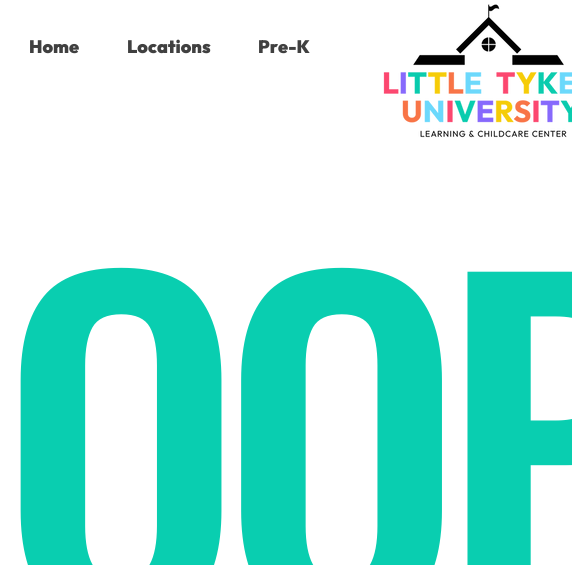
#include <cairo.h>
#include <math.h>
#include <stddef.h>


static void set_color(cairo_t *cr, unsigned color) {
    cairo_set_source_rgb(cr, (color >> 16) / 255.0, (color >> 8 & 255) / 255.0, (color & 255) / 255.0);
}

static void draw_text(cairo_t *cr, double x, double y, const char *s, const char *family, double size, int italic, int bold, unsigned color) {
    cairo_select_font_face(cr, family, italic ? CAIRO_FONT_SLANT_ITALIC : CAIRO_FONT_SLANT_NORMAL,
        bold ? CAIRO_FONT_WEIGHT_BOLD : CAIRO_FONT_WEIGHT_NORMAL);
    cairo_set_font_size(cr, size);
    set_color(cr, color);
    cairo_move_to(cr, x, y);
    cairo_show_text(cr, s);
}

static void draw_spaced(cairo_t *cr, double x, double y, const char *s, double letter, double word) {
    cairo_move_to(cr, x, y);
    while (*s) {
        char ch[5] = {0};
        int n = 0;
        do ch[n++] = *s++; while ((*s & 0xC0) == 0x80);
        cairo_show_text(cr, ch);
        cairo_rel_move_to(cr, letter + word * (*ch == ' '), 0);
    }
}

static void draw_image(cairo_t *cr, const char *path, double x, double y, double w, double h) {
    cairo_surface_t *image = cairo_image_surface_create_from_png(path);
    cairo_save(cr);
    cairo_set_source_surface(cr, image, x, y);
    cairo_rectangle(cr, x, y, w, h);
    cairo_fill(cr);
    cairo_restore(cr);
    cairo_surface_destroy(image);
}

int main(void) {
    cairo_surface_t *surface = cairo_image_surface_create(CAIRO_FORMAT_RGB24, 572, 565);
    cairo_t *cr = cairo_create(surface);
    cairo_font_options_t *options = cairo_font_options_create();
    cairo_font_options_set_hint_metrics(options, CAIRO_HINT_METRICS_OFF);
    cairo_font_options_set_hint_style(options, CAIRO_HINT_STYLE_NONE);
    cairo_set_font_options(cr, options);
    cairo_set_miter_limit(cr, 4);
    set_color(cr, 0xFFFFFF);
    cairo_paint(cr);
    draw_text(cr, 29, 53, "Home", "Outfit Black", 18, 0, 0, 0x404040);
    draw_text(cr, 127, 53, "Locations", "Outfit Black", 18, 0, 0, 0x404040);
    draw_text(cr, 258, 53, "Pre-K", "Outfit Black", 18, 0, 0, 0x404040);
    draw_image(cr, "assets/img1.png", 383, 4, 189, 134);
    cairo_select_font_face(cr, "Oswald Medium", CAIRO_FONT_SLANT_NORMAL, CAIRO_FONT_WEIGHT_NORMAL);
    cairo_set_font_size(cr, 430);
    set_color(cr, 0x09CEB0);
    draw_spaced(cr, 0, 620, "OOP", -21.5, 0);
    cairo_surface_write_to_png(surface, "output.png");
    cairo_font_options_destroy(options);
    cairo_destroy(cr);
    cairo_surface_destroy(surface);
    return 0;
}
